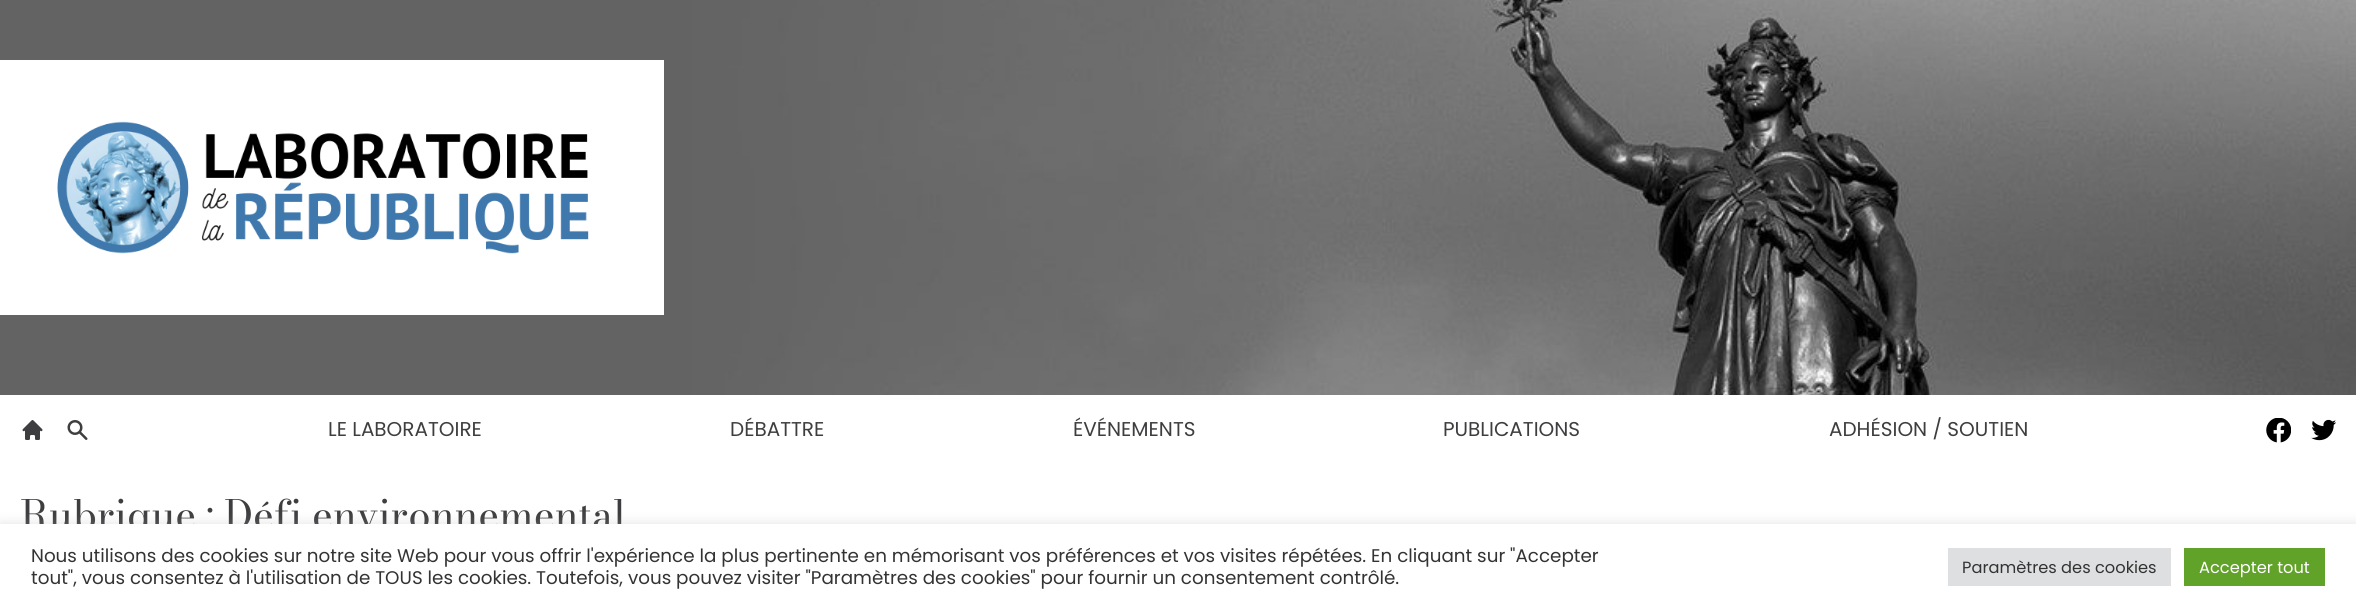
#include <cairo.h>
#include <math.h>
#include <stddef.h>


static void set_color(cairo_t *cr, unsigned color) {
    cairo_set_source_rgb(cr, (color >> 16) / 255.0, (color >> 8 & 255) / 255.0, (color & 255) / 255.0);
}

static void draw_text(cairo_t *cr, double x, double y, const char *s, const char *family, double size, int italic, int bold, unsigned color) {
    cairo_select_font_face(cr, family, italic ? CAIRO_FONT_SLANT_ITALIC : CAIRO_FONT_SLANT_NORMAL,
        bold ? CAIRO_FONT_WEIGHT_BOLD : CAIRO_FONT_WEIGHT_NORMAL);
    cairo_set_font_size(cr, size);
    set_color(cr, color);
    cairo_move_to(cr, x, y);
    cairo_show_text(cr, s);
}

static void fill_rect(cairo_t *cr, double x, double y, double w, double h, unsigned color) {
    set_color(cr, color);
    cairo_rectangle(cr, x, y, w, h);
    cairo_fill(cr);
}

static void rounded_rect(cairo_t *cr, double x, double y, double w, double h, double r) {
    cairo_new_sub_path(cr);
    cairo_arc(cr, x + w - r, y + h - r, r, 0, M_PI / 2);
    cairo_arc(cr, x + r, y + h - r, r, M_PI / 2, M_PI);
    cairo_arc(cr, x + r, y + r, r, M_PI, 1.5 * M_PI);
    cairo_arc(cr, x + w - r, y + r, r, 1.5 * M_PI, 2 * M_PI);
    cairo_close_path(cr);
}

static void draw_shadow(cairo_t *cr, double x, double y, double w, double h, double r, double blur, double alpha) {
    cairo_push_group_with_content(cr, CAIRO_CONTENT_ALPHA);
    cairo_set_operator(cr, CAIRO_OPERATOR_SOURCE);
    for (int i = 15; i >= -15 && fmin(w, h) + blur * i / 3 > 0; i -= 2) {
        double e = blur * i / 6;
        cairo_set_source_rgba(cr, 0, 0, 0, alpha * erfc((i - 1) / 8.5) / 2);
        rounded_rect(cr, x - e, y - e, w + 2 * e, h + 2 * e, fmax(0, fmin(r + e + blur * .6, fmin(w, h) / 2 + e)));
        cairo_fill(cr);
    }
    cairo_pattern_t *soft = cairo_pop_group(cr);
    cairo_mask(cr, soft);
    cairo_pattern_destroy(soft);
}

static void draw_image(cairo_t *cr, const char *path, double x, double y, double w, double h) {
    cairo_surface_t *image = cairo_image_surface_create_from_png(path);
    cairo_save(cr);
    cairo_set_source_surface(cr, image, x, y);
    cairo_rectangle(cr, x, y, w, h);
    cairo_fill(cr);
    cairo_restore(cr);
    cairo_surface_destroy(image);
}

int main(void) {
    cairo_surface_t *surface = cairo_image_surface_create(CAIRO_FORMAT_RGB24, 2356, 610);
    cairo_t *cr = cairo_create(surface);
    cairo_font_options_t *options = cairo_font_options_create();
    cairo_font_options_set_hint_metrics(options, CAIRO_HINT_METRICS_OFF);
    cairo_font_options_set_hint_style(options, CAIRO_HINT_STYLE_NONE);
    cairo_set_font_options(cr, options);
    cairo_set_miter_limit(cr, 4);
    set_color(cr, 0xFFFFFF);
    cairo_paint(cr);
    draw_image(cr, "assets/img1.png", 0, 0, 2356, 395);
    fill_rect(cr, 0, 60, 664, 255, 0xFFFFFF);
    draw_image(cr, "assets/img2.png", 57, 121, 532, 133);
    draw_image(cr, "assets/img3.png", 22, 420, 21, 20);
    draw_image(cr, "assets/img4.png", 67, 420, 21, 20);
    draw_text(cr, 328, 436, "LE LABORATOIRE", "Poppins", 20, 0, 0, 0x3E3D40);
    draw_text(cr, 730, 436, "DÉBATTRE", "Poppins", 20, 0, 0, 0x3E3D40);
    draw_text(cr, 1073, 436, "ÉVÉNEMENTS", "Poppins", 20, 0, 0, 0x3E3D40);
    draw_text(cr, 1443, 436, "PUBLICATIONS", "Poppins", 20, 0, 0, 0x3E3D40);
    draw_text(cr, 1829, 436, "ADHÉSION / SOUTIEN", "Poppins", 20, 0, 0, 0x3E3D40);
    draw_image(cr, "assets/img5.png", 2266, 418, 25, 25);
    draw_image(cr, "assets/img6.png", 2311, 419, 25, 22);
    draw_text(cr, 20, 529, "Rubrique : Défi environnemental", "Bodoni Moda", 40, 0, 0, 0x3E3D40);
    set_color(cr, 0xACABAB);
    draw_shadow(cr, 0, 523, 2356, 86, 0, 6, 0.3);
    fill_rect(cr, 0, 524, 2356, 86, 0xFFFFFF);
    draw_text(cr, 31, 562, "Nous utilisons des cookies sur notre site Web pour vous offrir l'expérience la plus pertinente en mémorisant vos préférences et vos visites répétées. En cliquant sur \"Accepter", "Poppins", 18.33, 0, 0, 0x333333);
    draw_text(cr, 31, 584, "tout\", vous consentez à l'utilisation de TOUS les cookies. Toutefois, vous pouvez visiter \"Paramètres des cookies\" pour fournir un consentement contrôlé.", "Poppins", 18.33, 0, 0, 0x333333);
    fill_rect(cr, 1948, 548, 223, 38, 0xDEDFE0);
    draw_text(cr, 1962, 573, "Paramètres des cookies", "Poppins", 16.25, 0, 0, 0x333333);
    fill_rect(cr, 2184, 548, 141, 38, 0x61A229);
    draw_text(cr, 2199, 573, "Accepter tout", "Poppins", 16.25, 0, 0, 0xFFFFFF);
    cairo_surface_write_to_png(surface, "output.png");
    cairo_font_options_destroy(options);
    cairo_destroy(cr);
    cairo_surface_destroy(surface);
    return 0;
}
